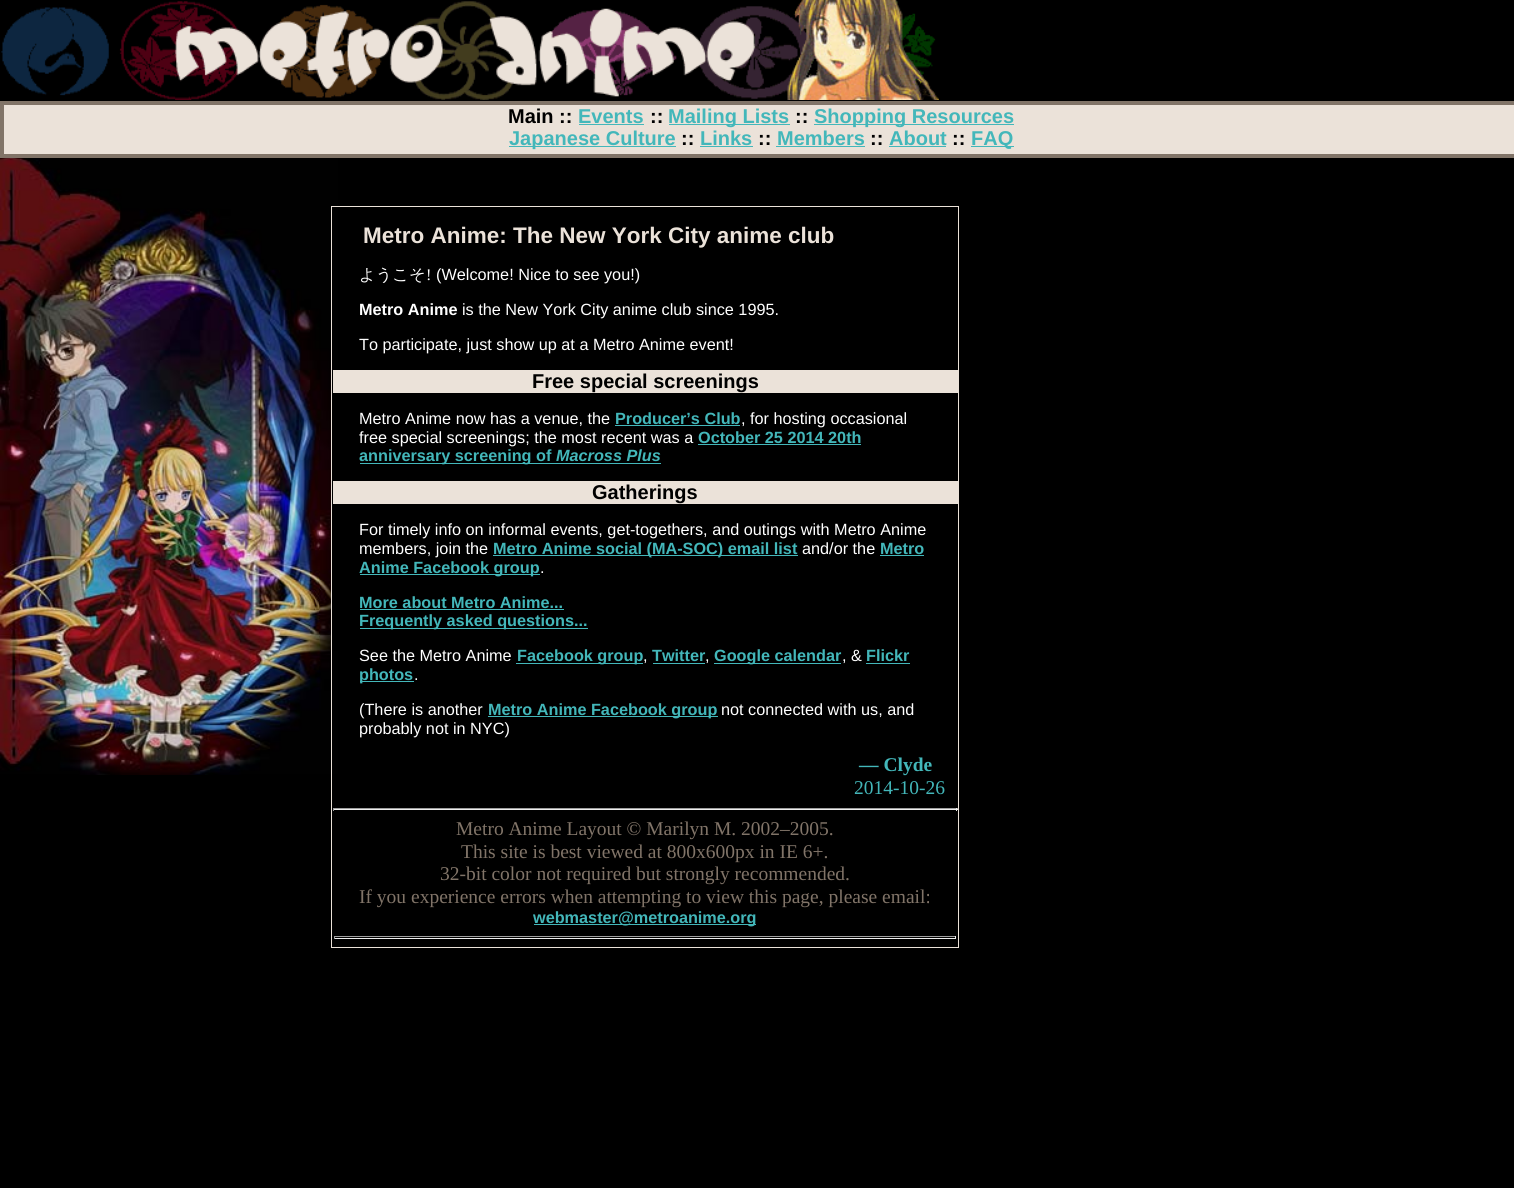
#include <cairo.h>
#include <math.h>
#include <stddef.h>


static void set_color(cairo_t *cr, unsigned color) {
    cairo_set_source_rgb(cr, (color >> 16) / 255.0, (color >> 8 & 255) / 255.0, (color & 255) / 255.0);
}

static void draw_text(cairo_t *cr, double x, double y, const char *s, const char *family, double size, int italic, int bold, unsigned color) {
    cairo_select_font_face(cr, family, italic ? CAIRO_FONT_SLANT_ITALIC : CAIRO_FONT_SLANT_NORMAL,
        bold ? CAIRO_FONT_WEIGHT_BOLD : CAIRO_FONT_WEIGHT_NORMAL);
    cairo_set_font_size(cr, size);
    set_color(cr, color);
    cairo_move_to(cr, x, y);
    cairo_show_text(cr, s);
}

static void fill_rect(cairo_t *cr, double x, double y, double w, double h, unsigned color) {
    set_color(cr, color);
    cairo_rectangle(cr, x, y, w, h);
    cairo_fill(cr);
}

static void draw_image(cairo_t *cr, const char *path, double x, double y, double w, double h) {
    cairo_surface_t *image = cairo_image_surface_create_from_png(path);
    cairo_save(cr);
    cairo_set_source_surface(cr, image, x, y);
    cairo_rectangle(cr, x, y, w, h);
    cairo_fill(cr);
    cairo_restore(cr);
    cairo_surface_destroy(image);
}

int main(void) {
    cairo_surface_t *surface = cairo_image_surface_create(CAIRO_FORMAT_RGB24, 1514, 1188);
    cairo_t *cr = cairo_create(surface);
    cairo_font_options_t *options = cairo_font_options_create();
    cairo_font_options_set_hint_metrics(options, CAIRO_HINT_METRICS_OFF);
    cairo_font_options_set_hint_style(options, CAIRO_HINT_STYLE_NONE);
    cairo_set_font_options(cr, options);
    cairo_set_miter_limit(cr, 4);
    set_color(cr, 0x000000);
    cairo_paint(cr);
    draw_image(cr, "assets/img1.png", 0, 158, 339, 617);
    draw_image(cr, "assets/img2.png", 1, 0, 938, 100);
    set_color(cr, 0xEBE2D9);
    cairo_rectangle(cr, 2, 103, 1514, 53);
    cairo_fill_preserve(cr);
    set_color(cr, 0x817468);
    cairo_set_line_width(cr, 4);
    cairo_stroke(cr);
    draw_text(cr, 508, 123, "Main ::", "Liberation Sans", 20, 0, 1, 0x000000);
    draw_text(cr, 578, 123, "Events", "Liberation Sans", 20, 0, 1, 0x43B7BA);
    fill_rect(cr, 579, 124, 65, 1, 0x43B7BA);
    draw_text(cr, 650, 123, "::", "Liberation Sans", 20, 0, 1, 0x000000);
    fill_rect(cr, 669, 124, 121, 1, 0x43B7BA);
    draw_text(cr, 668, 123, "Mailing Lists", "Liberation Sans", 20, 0, 1, 0x43B7BA);
    draw_text(cr, 795, 123, "::", "Liberation Sans", 20, 0, 1, 0x000000);
    fill_rect(cr, 814, 124, 200, 1, 0x43B7BA);
    draw_text(cr, 814, 123, "Shopping Resources", "Liberation Sans", 20, 0, 1, 0x43B7BA);
    fill_rect(cr, 509, 146, 167, 1, 0x43B7BA);
    draw_text(cr, 509, 145, "Japanese Culture", "Liberation Sans", 20, 0, 1, 0x43B7BA);
    draw_text(cr, 681, 145, "::", "Liberation Sans", 20, 0, 1, 0x000000);
    draw_text(cr, 700, 145, "Links", "Liberation Sans", 20, 0, 1, 0x43B7BA);
    fill_rect(cr, 700, 146, 53, 1, 0x43B7BA);
    draw_text(cr, 758, 145, "::", "Liberation Sans", 20, 0, 1, 0x000000);
    draw_text(cr, 777, 145, "Members", "Liberation Sans", 20, 0, 1, 0x43B7BA);
    fill_rect(cr, 776, 146, 89, 1, 0x43B7BA);
    draw_text(cr, 870, 145, "::", "Liberation Sans", 20, 0, 1, 0x000000);
    draw_text(cr, 889, 145, "About", "Liberation Sans", 20, 0, 1, 0x43B7BA);
    fill_rect(cr, 889, 146, 57, 1, 0x43B7BA);
    draw_text(cr, 952, 145, "::", "Liberation Sans", 20, 0, 1, 0x000000);
    fill_rect(cr, 971, 146, 43, 1, 0x43B7BA);
    draw_text(cr, 971, 145, "FAQ", "Liberation Sans", 20, 0, 1, 0x43B7BA);
    fill_rect(cr, 332, 370, 7, 281, 0x000000);
    cairo_rectangle(cr, 331.5, 206.5, 627, 741);
    set_color(cr, 0xEBE2D9);
    cairo_set_line_width(cr, 1);
    cairo_stroke(cr);
    draw_text(cr, 363, 243, "Metro Anime: The New York City anime club", "Liberation Sans", 22.5, 0, 1, 0xEBE2D9);
    draw_text(cr, 359, 280, "ようこそ", "WenQuanYi Zen Hei Medium", 16.25, 0, 0, 0xFFFFFF);
    draw_text(cr, 426, 280, "!", "Liberation Serif", 16.25, 0, 0, 0xFFFFFF);
    draw_text(cr, 436, 280, "(Welcome! Nice to see you!)", "Liberation Sans", 16.25, 0, 0, 0xFFFFFF);
    draw_text(cr, 359, 315, "Metro Anime", "Liberation Sans", 16.25, 0, 1, 0xFFFFFF);
    draw_text(cr, 462, 315, "is the New York City anime club since 1995.", "Liberation Sans", 16.25, 0, 0, 0xFFFFFF);
    draw_text(cr, 359, 350, "To participate, just show up at a Metro Anime event!", "Liberation Sans", 16.25, 0, 0, 0xFFFFFF);
    fill_rect(cr, 333, 370, 625, 23, 0xEBE2D9);
    draw_text(cr, 532, 388, "Free special screenings", "Liberation Sans", 20, 0, 1, 0x000000);
    draw_text(cr, 359, 424, "Metro Anime now has a venue, the", "Liberation Sans", 16.25, 0, 0, 0xFFFFFF);
    draw_text(cr, 615, 424, "Producer’s Club", "Liberation Sans", 16.25, 0, 1, 0x43B7BA);
    fill_rect(cr, 615, 425, 125, 1, 0x43B7BA);
    draw_text(cr, 741, 424, ", for hosting occasional", "Liberation Sans", 16.25, 0, 0, 0xFFFFFF);
    draw_text(cr, 359, 443, "free special screenings; the most recent was a", "Liberation Sans", 16.25, 0, 0, 0xFFFFFF);
    draw_text(cr, 698, 443, "October 25 2014 20th", "Liberation Sans", 16.25, 0, 1, 0x43B7BA);
    fill_rect(cr, 698, 444, 163, 1, 0x43B7BA);
    fill_rect(cr, 360, 463, 301, 1, 0x43B7BA);
    draw_text(cr, 359, 461, "anniversary screening of", "Liberation Sans", 16.25, 0, 1, 0x43B7BA);
    draw_text(cr, 556, 461, "Macross Plus", "Liberation Sans", 16.25, 1, 1, 0x43B7BA);
    fill_rect(cr, 333, 481, 625, 23, 0xEBE2D9);
    draw_text(cr, 592, 499, "Gatherings", "Liberation Sans", 20, 0, 1, 0x000000);
    draw_text(cr, 359, 535, "For timely info on informal events, get-togethers, and outings with Metro Anime", "Liberation Sans", 16.25, 0, 0, 0xFFFFFF);
    draw_text(cr, 359, 554, "members, join the", "Liberation Sans", 16.25, 0, 0, 0xFFFFFF);
    fill_rect(cr, 493, 555, 305, 1, 0x43B7BA);
    draw_text(cr, 493, 554, "Metro Anime social (MA-SOC) email list", "Liberation Sans", 16.25, 0, 1, 0x43B7BA);
    draw_text(cr, 802, 554, "and/or the", "Liberation Sans", 16.25, 0, 0, 0xFFFFFF);
    draw_text(cr, 880, 554, "Metro", "Liberation Sans", 16.25, 0, 1, 0x43B7BA);
    fill_rect(cr, 880, 555, 44, 1, 0x43B7BA);
    fill_rect(cr, 360, 574, 180, 1, 0x43B7BA);
    draw_text(cr, 359, 573, "Anime Facebook group", "Liberation Sans", 16.25, 0, 1, 0x43B7BA);
    draw_text(cr, 540, 573, ".", "Liberation Sans", 16.25, 0, 0, 0xFFFFFF);
    draw_text(cr, 359, 608, "More about Metro Anime...", "Liberation Sans", 16.25, 0, 1, 0x43B7BA);
    fill_rect(cr, 360, 609, 204, 1, 0x43B7BA);
    fill_rect(cr, 360, 628, 228, 1, 0x43B7BA);
    draw_text(cr, 359, 626, "Frequently asked questions...", "Liberation Sans", 16.25, 0, 1, 0x43B7BA);
    draw_text(cr, 359, 661, "See the Metro Anime", "Liberation Sans", 16.25, 0, 0, 0xFFFFFF);
    fill_rect(cr, 516, 663, 127, 1, 0x43B7BA);
    draw_text(cr, 517, 661, "Facebook group", "Liberation Sans", 16.25, 0, 1, 0x43B7BA);
    draw_text(cr, 643, 661, ",", "Liberation Sans", 16.25, 0, 0, 0xFFFFFF);
    draw_text(cr, 652, 661, "Twitter", "Liberation Sans", 16.25, 0, 1, 0x43B7BA);
    fill_rect(cr, 653, 663, 52, 1, 0x43B7BA);
    draw_text(cr, 705, 661, ",", "Liberation Sans", 16.25, 0, 0, 0xFFFFFF);
    fill_rect(cr, 714, 663, 127, 1, 0x43B7BA);
    draw_text(cr, 714, 661, "Google calendar", "Liberation Sans", 16.25, 0, 1, 0x43B7BA);
    draw_text(cr, 842, 661, ", &", "Liberation Sans", 16.25, 0, 0, 0xFFFFFF);
    draw_text(cr, 866, 661, "Flickr", "Liberation Sans", 16.25, 0, 1, 0x43B7BA);
    fill_rect(cr, 866, 663, 44, 1, 0x43B7BA);
    fill_rect(cr, 360, 681, 54, 1, 0x43B7BA);
    draw_text(cr, 359, 680, "photos", "Liberation Sans", 16.25, 0, 1, 0x43B7BA);
    draw_text(cr, 414, 680, ".", "Liberation Sans", 16.25, 0, 0, 0xFFFFFF);
    draw_text(cr, 359, 715, "(There is another", "Liberation Sans", 16.25, 0, 0, 0xFFFFFF);
    fill_rect(cr, 488, 716, 230, 1, 0x43B7BA);
    draw_text(cr, 488, 715, "Metro Anime Facebook group", "Liberation Sans", 16.25, 0, 1, 0x43B7BA);
    draw_text(cr, 721, 715, "not connected with us, and", "Liberation Sans", 16.25, 0, 0, 0xFFFFFF);
    draw_text(cr, 359, 734, "probably not in NYC)", "Liberation Sans", 16.25, 0, 0, 0xFFFFFF);
    draw_text(cr, 859, 771, "— Clyde", "Liberation Serif", 19.5, 0, 1, 0x43B7BA);
    draw_text(cr, 854, 794, "2014-10-26", "Liberation Serif", 19.5, 0, 0, 0x43B7BA);
    fill_rect(cr, 333, 808, 625, 1, 0x9F9F9F);
    fill_rect(cr, 956, 808, 1, 3, 0xEEEEEE);
    fill_rect(cr, 333, 809, 625, 1, 0xEEEEEE);
    fill_rect(cr, 333, 808, 1, 3, 0x9F9F9F);
    draw_text(cr, 456, 835, "Metro Anime Layout © Marilyn M. 2002–2005.", "Liberation Serif", 19.5, 0, 0, 0x817468);
    draw_text(cr, 461, 858, "This site is best viewed at 800x600px in IE 6+.", "Liberation Serif", 19.5, 0, 0, 0x817468);
    draw_text(cr, 440, 880, "32-bit color not required but strongly recommended.", "Liberation Serif", 19.5, 0, 0, 0x817468);
    draw_text(cr, 359, 903, "If you experience errors when attempting to view this page, please email:", "Liberation Serif", 19.5, 0, 0, 0x817468);
    fill_rect(cr, 534, 924, 222, 1, 0x43B7BA);
    draw_text(cr, 533, 923, "webmaster@metroanime.org", "Liberation Sans", 16.25, 0, 1, 0x43B7BA);
    fill_rect(cr, 334, 936, 622, 1, 0x9F9F9F);
    fill_rect(cr, 955, 936, 1, 3, 0xEEEEEE);
    fill_rect(cr, 334, 938, 622, 1, 0xEEEEEE);
    fill_rect(cr, 334, 936, 1, 3, 0x9F9F9F);
    cairo_surface_write_to_png(surface, "output.png");
    cairo_font_options_destroy(options);
    cairo_destroy(cr);
    cairo_surface_destroy(surface);
    return 0;
}
